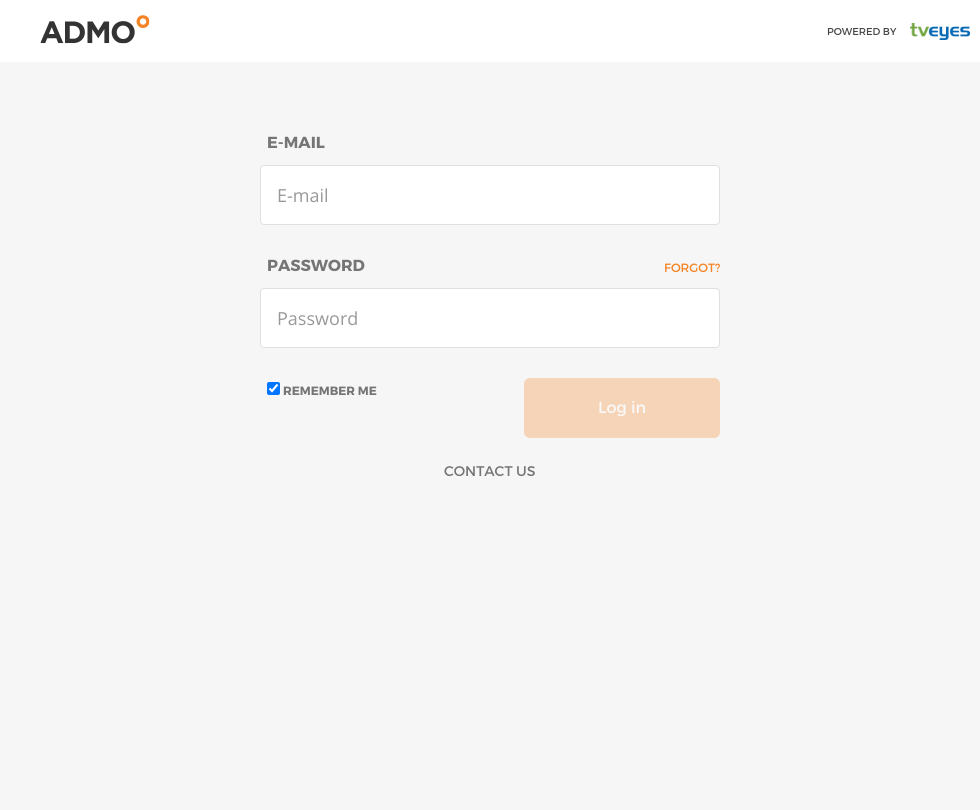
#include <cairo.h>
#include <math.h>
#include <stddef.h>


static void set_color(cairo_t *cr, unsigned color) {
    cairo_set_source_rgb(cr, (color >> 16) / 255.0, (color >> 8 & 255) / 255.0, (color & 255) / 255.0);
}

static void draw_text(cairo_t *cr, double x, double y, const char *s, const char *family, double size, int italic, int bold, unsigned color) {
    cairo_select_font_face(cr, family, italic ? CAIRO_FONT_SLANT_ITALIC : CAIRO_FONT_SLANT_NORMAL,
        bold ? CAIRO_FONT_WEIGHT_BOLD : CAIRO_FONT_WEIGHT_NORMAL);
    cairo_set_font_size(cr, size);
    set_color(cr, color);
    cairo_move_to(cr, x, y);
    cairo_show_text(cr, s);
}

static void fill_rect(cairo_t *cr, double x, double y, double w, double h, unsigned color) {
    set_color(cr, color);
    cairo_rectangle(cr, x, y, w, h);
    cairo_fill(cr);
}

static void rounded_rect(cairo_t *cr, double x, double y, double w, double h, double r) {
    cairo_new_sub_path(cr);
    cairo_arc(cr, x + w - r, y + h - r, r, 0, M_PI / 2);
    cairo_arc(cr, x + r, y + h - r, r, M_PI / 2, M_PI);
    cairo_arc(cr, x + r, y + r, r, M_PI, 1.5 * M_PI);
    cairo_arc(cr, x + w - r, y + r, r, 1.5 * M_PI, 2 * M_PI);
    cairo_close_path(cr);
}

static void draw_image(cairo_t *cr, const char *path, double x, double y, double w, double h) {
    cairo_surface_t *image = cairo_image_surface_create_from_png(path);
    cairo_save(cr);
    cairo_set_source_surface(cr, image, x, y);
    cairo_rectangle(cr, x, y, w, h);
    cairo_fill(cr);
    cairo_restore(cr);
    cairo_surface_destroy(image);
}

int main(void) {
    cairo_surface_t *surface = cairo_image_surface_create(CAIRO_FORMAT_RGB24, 980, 810);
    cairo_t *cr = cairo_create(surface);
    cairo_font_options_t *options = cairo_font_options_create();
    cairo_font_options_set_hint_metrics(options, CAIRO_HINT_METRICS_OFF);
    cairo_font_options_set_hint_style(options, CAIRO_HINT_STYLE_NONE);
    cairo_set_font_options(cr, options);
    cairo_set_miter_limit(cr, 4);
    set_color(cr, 0xFFFFFF);
    cairo_paint(cr);
    draw_image(cr, "assets/img1.png", 40, 15, 110, 29);
    draw_text(cr, 827, 35, "POWERED BY", "Montserrat", 10, 0, 0, 0x454545);
    draw_image(cr, "assets/img2.png", 910, 23, 60, 17);
    fill_rect(cr, 0, 62, 980, 748, 0xF6F6F6);
    draw_text(cr, 267, 148, "E-MAIL", "Montserrat", 16, 0, 1, 0x757575);
    set_color(cr, 0xFFFFFF);
    rounded_rect(cr, 260.5, 165.5, 459, 59, 3.5);
    cairo_fill_preserve(cr);
    set_color(cr, 0xE0E0E0);
    cairo_set_line_width(cr, 1);
    cairo_stroke(cr);
    draw_text(cr, 277, 202, "E-mail", "Open Sans", 18, 0, 0, 0x999999);
    draw_text(cr, 267, 271, "PASSWORD", "Montserrat", 16, 0, 1, 0x757575);
    set_color(cr, 0xFFFFFF);
    rounded_rect(cr, 260.5, 288.5, 459, 59, 3.5);
    cairo_fill_preserve(cr);
    set_color(cr, 0xE0E0E0);
    cairo_stroke(cr);
    draw_text(cr, 277, 325, "Password", "Open Sans", 18, 0, 0, 0x999999);
    draw_text(cr, 664, 272, "FORGOT?", "Montserrat", 12, 0, 0, 0xF58426);
    set_color(cr, 0x0075FF);
    rounded_rect(cr, 267, 382, 13, 13, 2);
    cairo_fill(cr);
    cairo_new_path(cr);
    cairo_move_to(cr, 269.5, 388.5);
    cairo_line_to(cr, 272, 391);
    cairo_line_to(cr, 277.5, 384.5);
    set_color(cr, 0xFFFFFF);
    cairo_set_line_width(cr, 2.1);
    cairo_stroke(cr);
    draw_text(cr, 283, 395, "REMEMBER ME", "Montserrat", 12, 0, 1, 0x757575);
    set_color(cr, 0xF6D4B8);
    rounded_rect(cr, 524.5, 378.5, 195, 59, 5.5);
    cairo_fill_preserve(cr);
    cairo_set_line_width(cr, 1);
    cairo_stroke(cr);
    draw_text(cr, 598, 413, "Log in", "Montserrat", 16, 0, 0, 0xF9F9F9);
    draw_text(cr, 444, 476, "CONTACT US", "Montserrat", 14, 0, 0, 0x757575);
    cairo_surface_write_to_png(surface, "output.png");
    cairo_font_options_destroy(options);
    cairo_destroy(cr);
    cairo_surface_destroy(surface);
    return 0;
}
